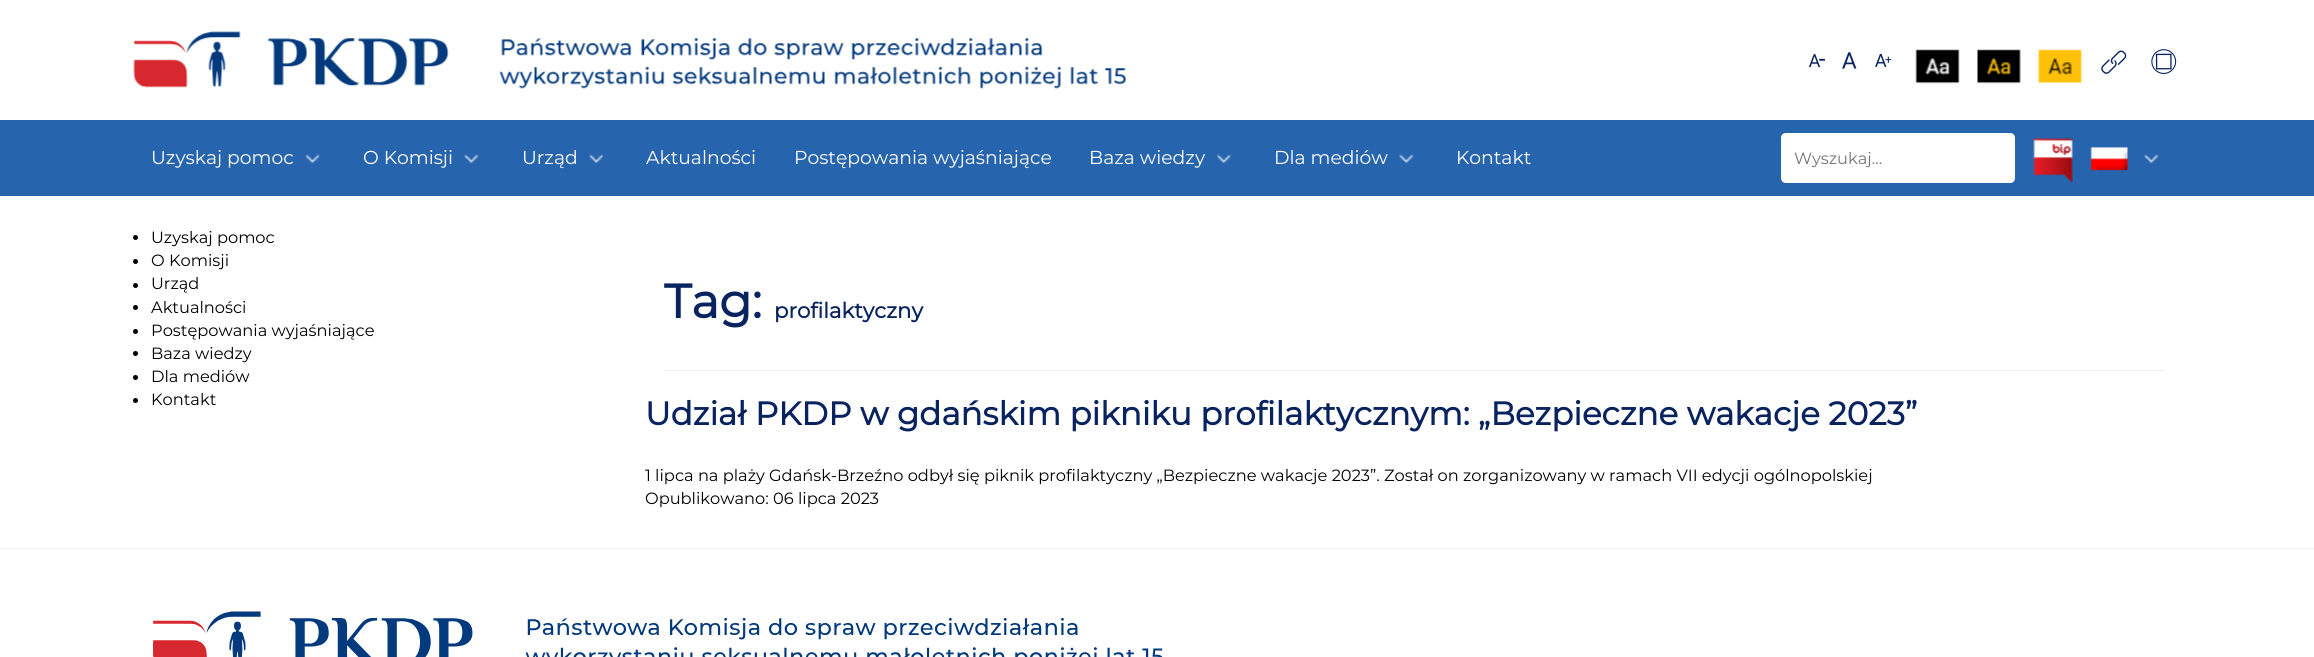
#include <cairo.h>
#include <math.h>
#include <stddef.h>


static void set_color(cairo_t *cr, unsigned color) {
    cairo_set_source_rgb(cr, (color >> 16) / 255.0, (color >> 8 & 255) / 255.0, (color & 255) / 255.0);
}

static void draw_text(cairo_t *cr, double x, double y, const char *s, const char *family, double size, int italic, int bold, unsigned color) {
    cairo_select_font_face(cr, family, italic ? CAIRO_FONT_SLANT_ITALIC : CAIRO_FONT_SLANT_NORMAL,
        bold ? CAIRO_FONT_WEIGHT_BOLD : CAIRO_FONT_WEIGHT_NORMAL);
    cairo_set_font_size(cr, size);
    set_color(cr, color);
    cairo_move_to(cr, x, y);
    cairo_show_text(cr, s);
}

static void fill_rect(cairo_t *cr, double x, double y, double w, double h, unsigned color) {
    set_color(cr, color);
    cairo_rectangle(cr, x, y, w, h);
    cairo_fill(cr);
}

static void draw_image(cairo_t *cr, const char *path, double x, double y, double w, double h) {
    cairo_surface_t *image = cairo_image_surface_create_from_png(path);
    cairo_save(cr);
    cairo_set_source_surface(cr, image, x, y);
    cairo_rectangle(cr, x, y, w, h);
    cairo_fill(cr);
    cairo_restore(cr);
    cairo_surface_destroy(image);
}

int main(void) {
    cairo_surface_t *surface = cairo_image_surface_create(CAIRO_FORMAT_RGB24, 2314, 657);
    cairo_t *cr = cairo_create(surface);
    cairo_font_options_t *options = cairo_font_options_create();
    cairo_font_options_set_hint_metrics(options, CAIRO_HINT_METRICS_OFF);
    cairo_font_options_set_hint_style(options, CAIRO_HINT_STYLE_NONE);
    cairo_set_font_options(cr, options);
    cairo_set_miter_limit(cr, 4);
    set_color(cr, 0xFFFFFF);
    cairo_paint(cr);
    draw_image(cr, "assets/img1.png", 133, 31, 994, 58);
    draw_image(cr, "assets/img2.png", 1808, 54, 17, 14);
    draw_image(cr, "assets/img3.png", 1842, 52, 15, 17);
    draw_image(cr, "assets/img4.png", 1875, 53, 17, 14);
    draw_image(cr, "assets/img5.png", 1915, 49, 45, 35);
    draw_image(cr, "assets/img6.png", 1977, 49, 44, 35);
    draw_image(cr, "assets/img7.png", 2038, 49, 44, 35);
    draw_image(cr, "assets/img8.png", 2101, 50, 26, 24);
    draw_image(cr, "assets/img9.png", 2151, 49, 26, 25);
    fill_rect(cr, 0, 120, 2314, 76, 0x2764AE);
    draw_text(cr, 151, 164, "Uzyskaj pomoc", "Montserrat Thin", 18.75, 0, 0, 0xFFFFFF);
    draw_image(cr, "assets/img10.png", 305, 154, 15, 10);
    draw_text(cr, 363, 164, "O Komisji", "Montserrat Thin", 18.75, 0, 0, 0xFFFFFF);
    draw_image(cr, "assets/img11.png", 464, 154, 15, 10);
    draw_text(cr, 522, 164, "Urząd", "Montserrat Thin", 18.75, 0, 0, 0xFFFFFF);
    draw_image(cr, "assets/img11.png", 589, 154, 15, 10);
    draw_text(cr, 646, 164, "Aktualności", "Montserrat Thin", 18.75, 0, 0, 0xFFFFFF);
    draw_text(cr, 794, 164, "Postępowania wyjaśniające", "Montserrat Thin", 18.75, 0, 0, 0xFFFFFF);
    draw_text(cr, 1089, 164, "Baza wiedzy", "Montserrat Thin", 18.75, 0, 0, 0xFFFFFF);
    draw_image(cr, "assets/img12.png", 1217, 154, 14, 10);
    draw_text(cr, 1274, 164, "Dla mediów", "Montserrat Thin", 18.75, 0, 0, 0xFFFFFF);
    draw_image(cr, "assets/img11.png", 1399, 154, 15, 10);
    draw_text(cr, 1456, 164, "Kontakt", "Montserrat Thin", 18.75, 0, 0, 0xFFFFFF);
    cairo_new_path(cr);
    cairo_move_to(cr, 1965, 133);
    cairo_line_to(cr, 2010, 133);
    cairo_curve_to(cr, 2013, 133, 2015, 135, 2015, 138);
    cairo_line_to(cr, 2015, 178);
    cairo_curve_to(cr, 2015, 181, 2013, 183, 2010, 183);
    cairo_line_to(cr, 1965, 183);
    cairo_close_path(cr);
    cairo_fill(cr);
    cairo_new_path(cr);
    cairo_move_to(cr, 1786, 133);
    cairo_line_to(cr, 1969, 133);
    cairo_line_to(cr, 1969, 183);
    cairo_line_to(cr, 1786, 183);
    cairo_curve_to(cr, 1783, 183, 1781, 181, 1781, 178);
    cairo_line_to(cr, 1781, 138);
    cairo_curve_to(cr, 1781, 135, 1783, 133, 1786, 133);
    cairo_close_path(cr);
    cairo_fill(cr);
    draw_text(cr, 1794, 164, "Wyszukaj...", "Montserrat Thin", 16.25, 0, 0, 0x757575);
    draw_image(cr, "assets/img13.png", 2033, 138, 40, 45);
    draw_image(cr, "assets/img14.png", 2090, 147, 38, 24);
    draw_image(cr, "assets/img11.png", 2144, 154, 15, 10);
    set_color(cr, 0x000000);
    cairo_arc(cr, 135.5, 237.5, 2.5, 0, 2 * M_PI);
    cairo_fill(cr);
    draw_text(cr, 151, 243, "Uzyskaj pomoc", "Montserrat Thin", 16.25, 0, 0, 0x000000);
    cairo_new_path(cr);
    cairo_arc(cr, 135.5, 261.5, 2.5, 0, 2 * M_PI);
    cairo_fill(cr);
    draw_text(cr, 151, 266, "O Komisji", "Montserrat Thin", 16.25, 0, 0, 0x000000);
    cairo_new_path(cr);
    cairo_arc(cr, 135.5, 285.5, 2.5, 0, 2 * M_PI);
    cairo_fill(cr);
    draw_text(cr, 151, 289, "Urząd", "Montserrat Thin", 16.25, 0, 0, 0x000000);
    cairo_new_path(cr);
    cairo_arc(cr, 135.5, 307.5, 2.5, 0, 2 * M_PI);
    cairo_fill(cr);
    draw_text(cr, 151, 313, "Aktualności", "Montserrat Thin", 16.25, 0, 0, 0x000000);
    cairo_new_path(cr);
    cairo_arc(cr, 135.5, 331.5, 2.5, 0, 2 * M_PI);
    cairo_fill(cr);
    draw_text(cr, 151, 336, "Postępowania wyjaśniające", "Montserrat Thin", 16.25, 0, 0, 0x000000);
    cairo_new_path(cr);
    cairo_arc(cr, 135.5, 353.5, 2.5, 0, 2 * M_PI);
    cairo_fill(cr);
    draw_text(cr, 151, 359, "Baza wiedzy", "Montserrat Thin", 16.25, 0, 0, 0x000000);
    cairo_new_path(cr);
    cairo_arc(cr, 135.5, 377.5, 2.5, 0, 2 * M_PI);
    cairo_fill(cr);
    draw_text(cr, 151, 382, "Dla mediów", "Montserrat Thin", 16.25, 0, 0, 0x000000);
    cairo_new_path(cr);
    cairo_arc(cr, 135.5, 400.5, 2.5, 0, 2 * M_PI);
    cairo_fill(cr);
    draw_text(cr, 151, 405, "Kontakt", "Montserrat Thin", 16.25, 0, 0, 0x000000);
    fill_rect(cr, 664, 370, 1500, 1, 0xEEEEEE);
    draw_text(cr, 664, 318, "Tag:", "Montserrat", 47.5, 0, 1, 0x092360);
    draw_text(cr, 774, 318, "profilaktyczny", "Montserrat", 21.25, 0, 1, 0x092360);
    draw_text(cr, 645, 425, "Udział PKDP w gdańskim pikniku profilaktycznym: „Bezpieczne wakacje 2023”", "Montserrat", 32.5, 0, 1, 0x092360);
    draw_text(cr, 645, 481, "1 lipca na plaży Gdańsk-Brzeźno odbył się piknik profilaktyczny „Bezpieczne wakacje 2023”. Został on zorganizowany w ramach VII edycji ogólnopolskiej", "Montserrat Thin", 16.25, 0, 0, 0x000000);
    draw_text(cr, 645, 504, "Opublikowano: 06 lipca 2023", "Montserrat Thin", 16.25, 0, 0, 0x000000);
    fill_rect(cr, 0, 548, 2314, 1, 0xF3F3F3);
    draw_image(cr, "assets/img15.png", 153, 611, 1010, 46);
    cairo_surface_write_to_png(surface, "output.png");
    cairo_font_options_destroy(options);
    cairo_destroy(cr);
    cairo_surface_destroy(surface);
    return 0;
}
